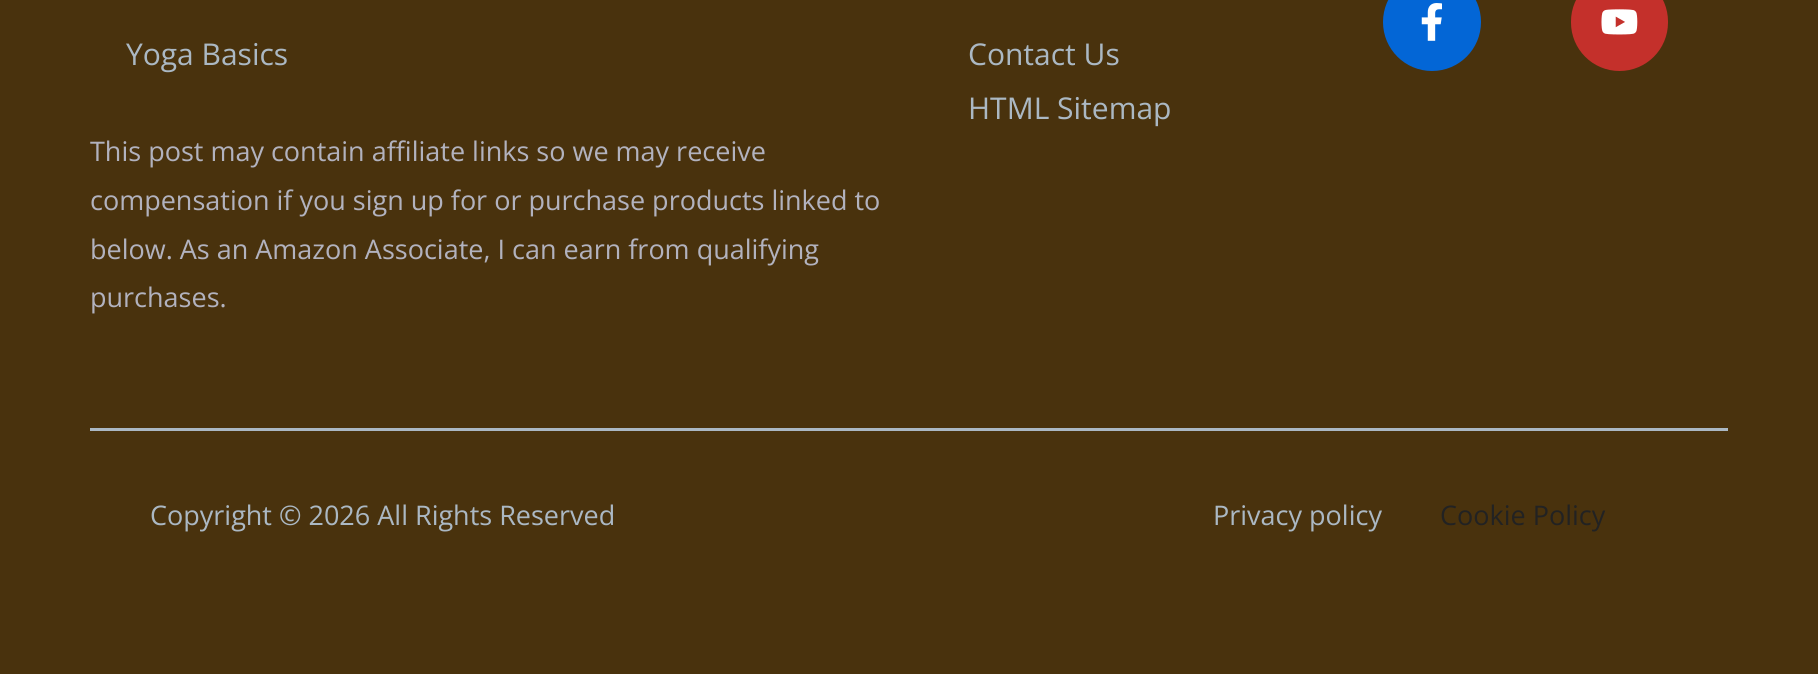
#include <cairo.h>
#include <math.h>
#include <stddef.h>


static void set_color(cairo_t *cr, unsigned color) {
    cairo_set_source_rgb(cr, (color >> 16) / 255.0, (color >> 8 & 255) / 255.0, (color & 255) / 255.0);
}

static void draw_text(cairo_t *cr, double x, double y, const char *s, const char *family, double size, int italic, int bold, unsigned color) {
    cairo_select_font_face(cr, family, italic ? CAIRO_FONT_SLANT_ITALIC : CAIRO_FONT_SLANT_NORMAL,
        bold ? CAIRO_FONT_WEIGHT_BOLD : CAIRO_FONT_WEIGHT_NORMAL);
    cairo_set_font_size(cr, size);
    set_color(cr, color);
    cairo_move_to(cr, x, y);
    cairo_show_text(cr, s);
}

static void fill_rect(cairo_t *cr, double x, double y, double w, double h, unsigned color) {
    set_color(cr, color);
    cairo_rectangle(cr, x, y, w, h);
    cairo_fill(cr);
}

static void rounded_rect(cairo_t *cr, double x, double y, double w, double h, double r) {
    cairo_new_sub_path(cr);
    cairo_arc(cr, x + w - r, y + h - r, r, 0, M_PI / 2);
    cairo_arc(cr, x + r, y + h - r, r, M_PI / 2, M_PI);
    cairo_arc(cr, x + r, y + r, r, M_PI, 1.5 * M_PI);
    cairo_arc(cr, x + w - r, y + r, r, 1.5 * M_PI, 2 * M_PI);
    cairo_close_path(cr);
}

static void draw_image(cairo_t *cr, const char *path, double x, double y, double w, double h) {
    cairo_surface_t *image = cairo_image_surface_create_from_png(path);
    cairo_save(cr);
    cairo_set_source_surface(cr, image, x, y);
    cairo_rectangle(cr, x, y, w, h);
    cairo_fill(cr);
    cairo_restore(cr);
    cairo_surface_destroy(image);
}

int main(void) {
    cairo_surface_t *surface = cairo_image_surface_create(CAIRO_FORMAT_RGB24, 1818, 674);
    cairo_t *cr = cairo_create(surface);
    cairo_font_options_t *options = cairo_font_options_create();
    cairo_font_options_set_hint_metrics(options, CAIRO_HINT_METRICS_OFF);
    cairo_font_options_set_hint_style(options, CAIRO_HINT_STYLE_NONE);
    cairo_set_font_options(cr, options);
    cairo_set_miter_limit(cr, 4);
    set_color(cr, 0x49320D);
    cairo_paint(cr);
    set_color(cr, 0x0366D6);
    cairo_arc(cr, 1432, 22, 49, 0, 2 * M_PI);
    cairo_fill(cr);
    draw_image(cr, "assets/img1.png", 1421, 3, 21, 38);
    set_color(cr, 0xC4302B);
    rounded_rect(cr, 1571, -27, 97, 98, 48.5);
    cairo_fill(cr);
    draw_image(cr, "assets/img2.png", 1601, 9, 37, 26);
    draw_text(cr, 126, 65, "Yoga Basics", "Open Sans", 30, 0, 0, 0xABB8C3);
    draw_text(cr, 90, 161, "This post may contain affiliate links so we may receive", "Open Sans", 27, 0, 0, 0xB2B2BE);
    draw_text(cr, 90, 210, "compensation if you sign up for or purchase products linked to", "Open Sans", 27, 0, 0, 0xB2B2BE);
    draw_text(cr, 90, 259, "below. As an Amazon Associate, I can earn from qualifying", "Open Sans", 27, 0, 0, 0xB2B2BE);
    draw_text(cr, 90, 307, "purchases.", "Open Sans", 27, 0, 0, 0xB2B2BE);
    draw_text(cr, 968, 65, "Contact Us", "Open Sans", 30, 0, 0, 0xABB8C3);
    draw_text(cr, 968, 119, "HTML Sitemap", "Open Sans", 30, 0, 0, 0xABB8C3);
    fill_rect(cr, 90, 428, 1638, 3, 0xABB8C3);
    draw_text(cr, 150, 525, "Copyright © 2026 All Rights Reserved", "Open Sans", 27, 0, 0, 0xABB8C3);
    draw_text(cr, 1213, 525, "Privacy policy", "Open Sans", 27, 0, 0, 0xABB8C3);
    draw_text(cr, 1440, 525, "Cookie Policy", "Open Sans", 27, 0, 0, 0x222222);
    cairo_surface_write_to_png(surface, "output.png");
    cairo_font_options_destroy(options);
    cairo_destroy(cr);
    cairo_surface_destroy(surface);
    return 0;
}
